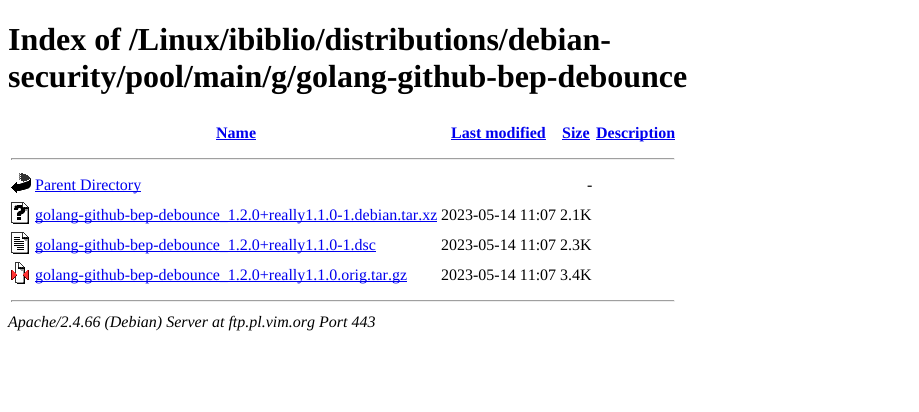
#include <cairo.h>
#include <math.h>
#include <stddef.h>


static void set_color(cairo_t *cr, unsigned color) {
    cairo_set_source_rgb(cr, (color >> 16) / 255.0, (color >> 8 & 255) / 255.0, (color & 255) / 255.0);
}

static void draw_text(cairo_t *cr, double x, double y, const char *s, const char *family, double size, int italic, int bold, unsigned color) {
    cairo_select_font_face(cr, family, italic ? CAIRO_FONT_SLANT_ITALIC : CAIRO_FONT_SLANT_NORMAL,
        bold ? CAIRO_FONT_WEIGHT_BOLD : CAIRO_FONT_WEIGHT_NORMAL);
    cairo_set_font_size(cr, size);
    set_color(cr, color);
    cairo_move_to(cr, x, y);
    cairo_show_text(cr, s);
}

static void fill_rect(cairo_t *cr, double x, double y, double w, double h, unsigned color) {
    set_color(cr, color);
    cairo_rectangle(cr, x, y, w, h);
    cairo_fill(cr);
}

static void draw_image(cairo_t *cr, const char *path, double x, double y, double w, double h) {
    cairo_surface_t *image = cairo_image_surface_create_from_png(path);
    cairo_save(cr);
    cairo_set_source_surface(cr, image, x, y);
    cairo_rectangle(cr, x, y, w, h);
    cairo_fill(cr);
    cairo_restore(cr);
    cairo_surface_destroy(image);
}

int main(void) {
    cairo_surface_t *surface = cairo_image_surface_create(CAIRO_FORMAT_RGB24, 919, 412);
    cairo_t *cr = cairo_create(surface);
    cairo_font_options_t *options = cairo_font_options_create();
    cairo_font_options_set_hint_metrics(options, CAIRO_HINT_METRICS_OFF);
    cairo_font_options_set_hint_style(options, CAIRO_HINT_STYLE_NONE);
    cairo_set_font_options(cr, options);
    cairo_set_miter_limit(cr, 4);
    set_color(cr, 0xFFFFFF);
    cairo_paint(cr);
    draw_text(cr, 8, 50, "Index of /Linux/ibiblio/distributions/debian-", "Liberation Serif", 32, 0, 1, 0x000000);
    draw_text(cr, 8, 87, "security/pool/main/g/golang-github-bep-debounce", "Liberation Serif", 32, 0, 1, 0x000000);
    draw_text(cr, 216, 138, "Name", "Liberation Serif", 16, 0, 1, 0x0000EE);
    fill_rect(cr, 216, 139, 40, 1, 0x0000EE);
    draw_text(cr, 451, 138, "Last modified", "Liberation Serif", 16, 0, 1, 0x0000EE);
    fill_rect(cr, 451, 139, 95, 1, 0x0000EE);
    draw_text(cr, 562, 138, "Size", "Liberation Serif", 16, 0, 1, 0x0000EE);
    fill_rect(cr, 562, 139, 28, 1, 0x0000EE);
    fill_rect(cr, 596, 139, 79, 1, 0x0000EE);
    draw_text(cr, 596, 138, "Description", "Liberation Serif", 16, 0, 1, 0x0000EE);
    fill_rect(cr, 11, 158, 664, 1, 0x9F9F9F);
    fill_rect(cr, 674, 158, 1, 2, 0xEEEEEE);
    fill_rect(cr, 11, 159, 664, 1, 0xEEEEEE);
    fill_rect(cr, 11, 158, 1, 2, 0x9F9F9F);
    draw_image(cr, "assets/img1.png", 11, 173, 20, 20);
    fill_rect(cr, 35, 191, 106, 1, 0x0000EE);
    draw_text(cr, 35, 190, "Parent Directory", "Liberation Serif", 16, 0, 0, 0x0000EE);
    draw_text(cr, 587, 190, "-", "Liberation Serif", 16, 0, 0, 0x000000);
    draw_image(cr, "assets/img2.png", 11, 202, 18, 22);
    fill_rect(cr, 35, 221, 402, 1, 0x0000EE);
    draw_text(cr, 35, 220, "golang-github-bep-debounce_1.2.0+really1.1.0-1.debian.tar.xz", "Liberation Serif", 16, 0, 0, 0x0000EE);
    draw_text(cr, 441, 220, "2023-05-14 11:07 2.1K", "Liberation Serif", 16, 0, 0, 0x000000);
    draw_image(cr, "assets/img3.png", 11, 232, 18, 22);
    fill_rect(cr, 35, 251, 341, 1, 0x0000EE);
    draw_text(cr, 35, 250, "golang-github-bep-debounce_1.2.0+really1.1.0-1.dsc", "Liberation Serif", 16, 0, 0, 0x0000EE);
    draw_text(cr, 441, 250, "2023-05-14 11:07 2.3K", "Liberation Serif", 16, 0, 0, 0x000000);
    draw_image(cr, "assets/img4.png", 11, 262, 18, 22);
    fill_rect(cr, 35, 281, 372, 1, 0x0000EE);
    draw_text(cr, 35, 280, "golang-github-bep-debounce_1.2.0+really1.1.0.orig.tar.gz", "Liberation Serif", 16, 0, 0, 0x0000EE);
    draw_text(cr, 441, 280, "2023-05-14 11:07 3.4K", "Liberation Serif", 16, 0, 0, 0x000000);
    fill_rect(cr, 11, 300, 664, 1, 0x9F9F9F);
    fill_rect(cr, 674, 300, 1, 2, 0xEEEEEE);
    fill_rect(cr, 11, 301, 664, 1, 0xEEEEEE);
    fill_rect(cr, 11, 300, 1, 2, 0x9F9F9F);
    draw_text(cr, 8, 327, "Apache/2.4.66 (Debian) Server at ftp.pl.vim.org Port 443", "Liberation Serif", 16, 1, 0, 0x000000);
    cairo_surface_write_to_png(surface, "output.png");
    cairo_font_options_destroy(options);
    cairo_destroy(cr);
    cairo_surface_destroy(surface);
    return 0;
}
